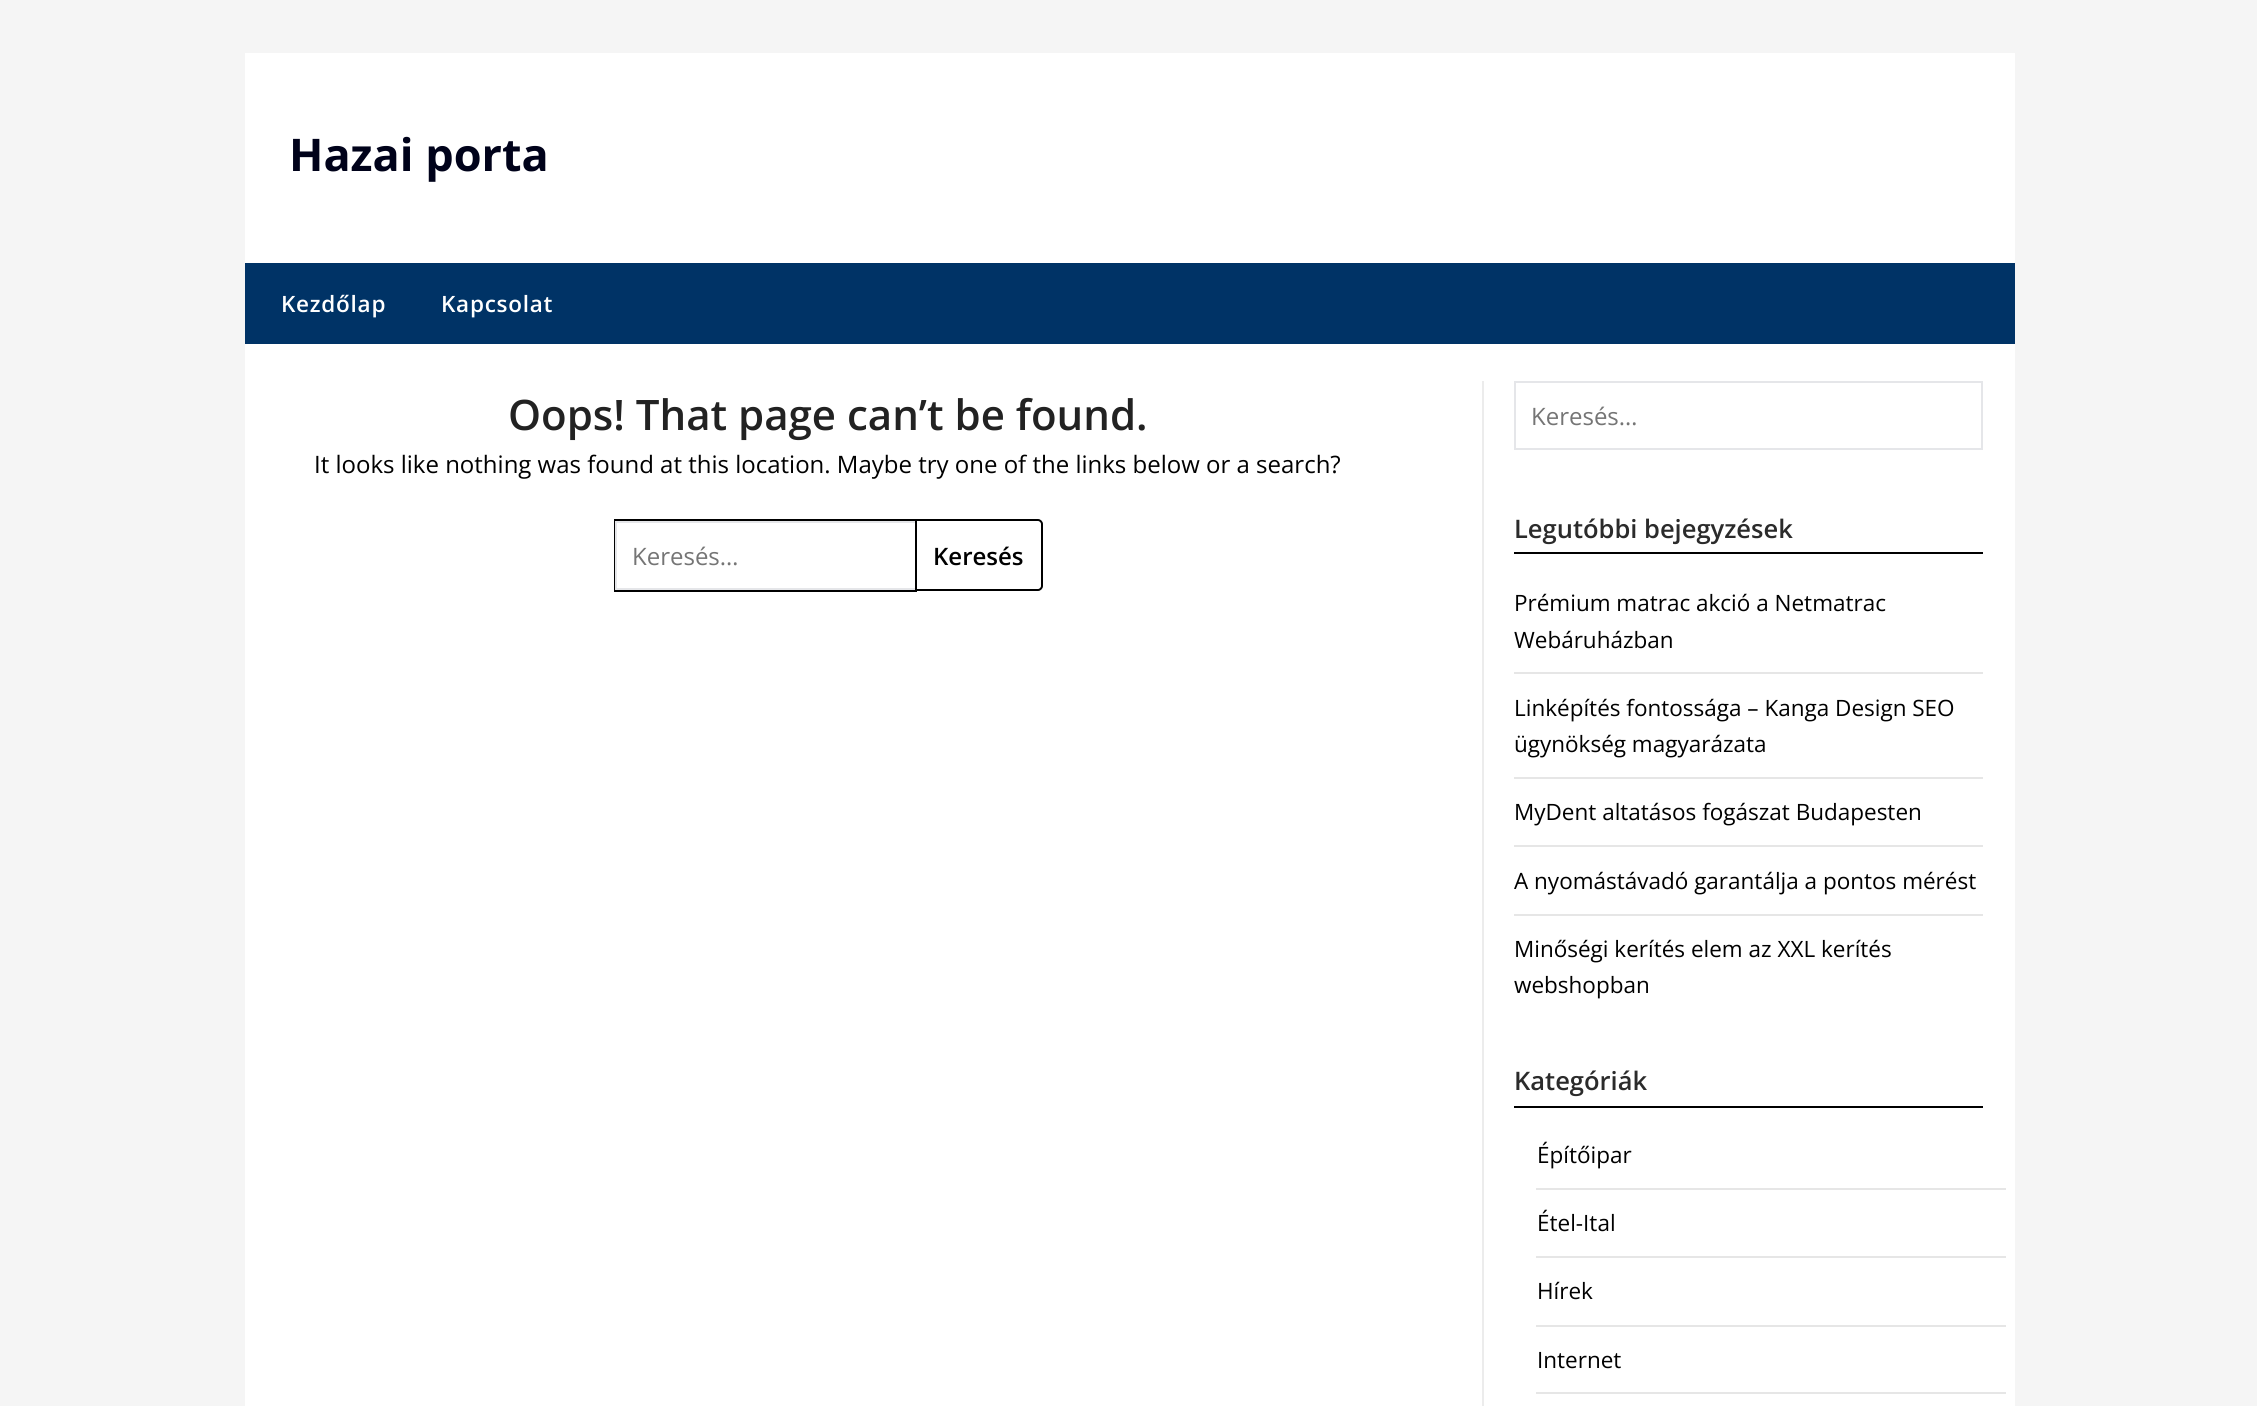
#include <cairo.h>
#include <math.h>
#include <stddef.h>


static void set_color(cairo_t *cr, unsigned color) {
    cairo_set_source_rgb(cr, (color >> 16) / 255.0, (color >> 8 & 255) / 255.0, (color & 255) / 255.0);
}

static void draw_text(cairo_t *cr, double x, double y, const char *s, const char *family, double size, int italic, int bold, unsigned color) {
    cairo_select_font_face(cr, family, italic ? CAIRO_FONT_SLANT_ITALIC : CAIRO_FONT_SLANT_NORMAL,
        bold ? CAIRO_FONT_WEIGHT_BOLD : CAIRO_FONT_WEIGHT_NORMAL);
    cairo_set_font_size(cr, size);
    set_color(cr, color);
    cairo_move_to(cr, x, y);
    cairo_show_text(cr, s);
}

static void draw_spaced(cairo_t *cr, double x, double y, const char *s, double letter, double word) {
    cairo_move_to(cr, x, y);
    while (*s) {
        char ch[5] = {0};
        int n = 0;
        do ch[n++] = *s++; while ((*s & 0xC0) == 0x80);
        cairo_show_text(cr, ch);
        cairo_rel_move_to(cr, letter + word * (*ch == ' '), 0);
    }
}

static void fill_rect(cairo_t *cr, double x, double y, double w, double h, unsigned color) {
    set_color(cr, color);
    cairo_rectangle(cr, x, y, w, h);
    cairo_fill(cr);
}

int main(void) {
    cairo_surface_t *surface = cairo_image_surface_create(CAIRO_FORMAT_RGB24, 2257, 1406);
    cairo_t *cr = cairo_create(surface);
    cairo_font_options_t *options = cairo_font_options_create();
    cairo_font_options_set_hint_metrics(options, CAIRO_HINT_METRICS_OFF);
    cairo_font_options_set_hint_style(options, CAIRO_HINT_STYLE_NONE);
    cairo_set_font_options(cr, options);
    cairo_set_miter_limit(cr, 4);
    set_color(cr, 0xF5F5F5);
    cairo_paint(cr);
    fill_rect(cr, 245, 53, 1770, 210, 0xFFFFFF);
    draw_text(cr, 289, 171, "Hazai porta", "Open Sans", 45, 0, 1, 0x00021A);
    fill_rect(cr, 245, 263, 1770, 81, 0x003366);
    cairo_select_font_face(cr, "Open Sans SemiBold", CAIRO_FONT_SLANT_NORMAL, CAIRO_FONT_WEIGHT_NORMAL);
    cairo_set_font_size(cr, 22.5);
    set_color(cr, 0xFFFFFF);
    draw_spaced(cr, 281, 312, "Kezdőlap", 0.75, 0);
    draw_spaced(cr, 441, 312, "Kapcsolat", 0.75, 0);
    fill_rect(cr, 245, 344, 1770, 1062, 0xFFFFFF);
    draw_text(cr, 508, 430, "Oops! That page can’t be found.", "Open Sans SemiBold", 42, 0, 0, 0x222222);
    draw_text(cr, 314, 473, "It looks like nothing was found at this location. Maybe try one of the links below or a search?", "Open Sans", 24, 0, 0, 0x000000);
    fill_rect(cr, 614, 519, 303, 2, 0x000000);
    fill_rect(cr, 614, 590, 303, 2, 0x000000);
    fill_rect(cr, 614, 519, 2, 72, 0x000000);
    cairo_rectangle(cr, 616, 522, 300, 67);
    set_color(cr, 0xE5E6E9);
    cairo_stroke(cr);
    draw_text(cr, 632, 565, "Keresés…", "Open Sans", 24, 0, 0, 0x757575);
    cairo_new_path(cr);
    cairo_move_to(cr, 916, 520);
    cairo_line_to(cr, 1038, 520);
    cairo_curve_to(cr, 1040, 520, 1042, 522, 1042, 524);
    cairo_line_to(cr, 1042, 586);
    cairo_curve_to(cr, 1042, 588, 1040, 590, 1038, 590);
    cairo_line_to(cr, 916, 590);
    cairo_close_path(cr);
    set_color(cr, 0x000000);
    cairo_stroke(cr);
    draw_text(cr, 933, 565, "Keresés", "Open Sans SemiBold", 24, 0, 0, 0x000000);
    fill_rect(cr, 1482, 381, 2, 1025, 0xECECEC);
    cairo_rectangle(cr, 1515, 382, 467, 67);
    set_color(cr, 0xE5E6E9);
    cairo_stroke(cr);
    draw_text(cr, 1531, 425, "Keresés…", "Open Sans", 24, 0, 0, 0x757575);
    fill_rect(cr, 1514, 552, 469, 2, 0x000000);
    draw_text(cr, 1514, 538, "Legutóbbi bejegyzések", "Open Sans SemiBold", 25.5, 0, 0, 0x2B2B2B);
    fill_rect(cr, 1514, 672, 469, 2, 0xE6E6E6);
    draw_text(cr, 1514, 611, "Prémium matrac akció a Netmatrac", "Open Sans", 22.5, 0, 0, 0x000000);
    draw_text(cr, 1514, 648, "Webáruházban", "Open Sans", 22.5, 0, 0, 0x000000);
    fill_rect(cr, 1514, 777, 469, 2, 0xE6E6E6);
    draw_text(cr, 1514, 716, "Linképítés fontossága – Kanga Design SEO", "Open Sans", 22.5, 0, 0, 0x000000);
    draw_text(cr, 1514, 752, "ügynökség magyarázata", "Open Sans", 22.5, 0, 0, 0x000000);
    fill_rect(cr, 1514, 845, 469, 2, 0xE6E6E6);
    draw_text(cr, 1514, 820, "MyDent altatásos fogászat Budapesten", "Open Sans", 22.5, 0, 0, 0x000000);
    fill_rect(cr, 1514, 914, 469, 2, 0xE6E6E6);
    draw_text(cr, 1514, 889, "A nyomástávadó garantálja a pontos mérést", "Open Sans", 22.5, 0, 0, 0x000000);
    draw_text(cr, 1514, 957, "Minőségi kerítés elem az XXL kerítés", "Open Sans", 22.5, 0, 0, 0x000000);
    draw_text(cr, 1514, 993, "webshopban", "Open Sans", 22.5, 0, 0, 0x000000);
    fill_rect(cr, 1514, 1106, 469, 2, 0x000000);
    draw_text(cr, 1514, 1090, "Kategóriák", "Open Sans SemiBold", 25.5, 0, 0, 0x2B2B2B);
    fill_rect(cr, 1536, 1188, 470, 2, 0xE6E6E6);
    draw_text(cr, 1537, 1163, "Építőipar", "Open Sans", 22.5, 0, 0, 0x000000);
    fill_rect(cr, 1536, 1256, 470, 2, 0xE6E6E6);
    draw_text(cr, 1537, 1231, "Étel-Ital", "Open Sans", 22.5, 0, 0, 0x000000);
    fill_rect(cr, 1536, 1325, 470, 2, 0xE6E6E6);
    draw_text(cr, 1537, 1299, "Hírek", "Open Sans", 22.5, 0, 0, 0x000000);
    fill_rect(cr, 1536, 1392, 470, 2, 0xE6E6E6);
    draw_text(cr, 1537, 1368, "Internet", "Open Sans", 22.5, 0, 0, 0x000000);
    cairo_surface_write_to_png(surface, "output.png");
    cairo_font_options_destroy(options);
    cairo_destroy(cr);
    cairo_surface_destroy(surface);
    return 0;
}
